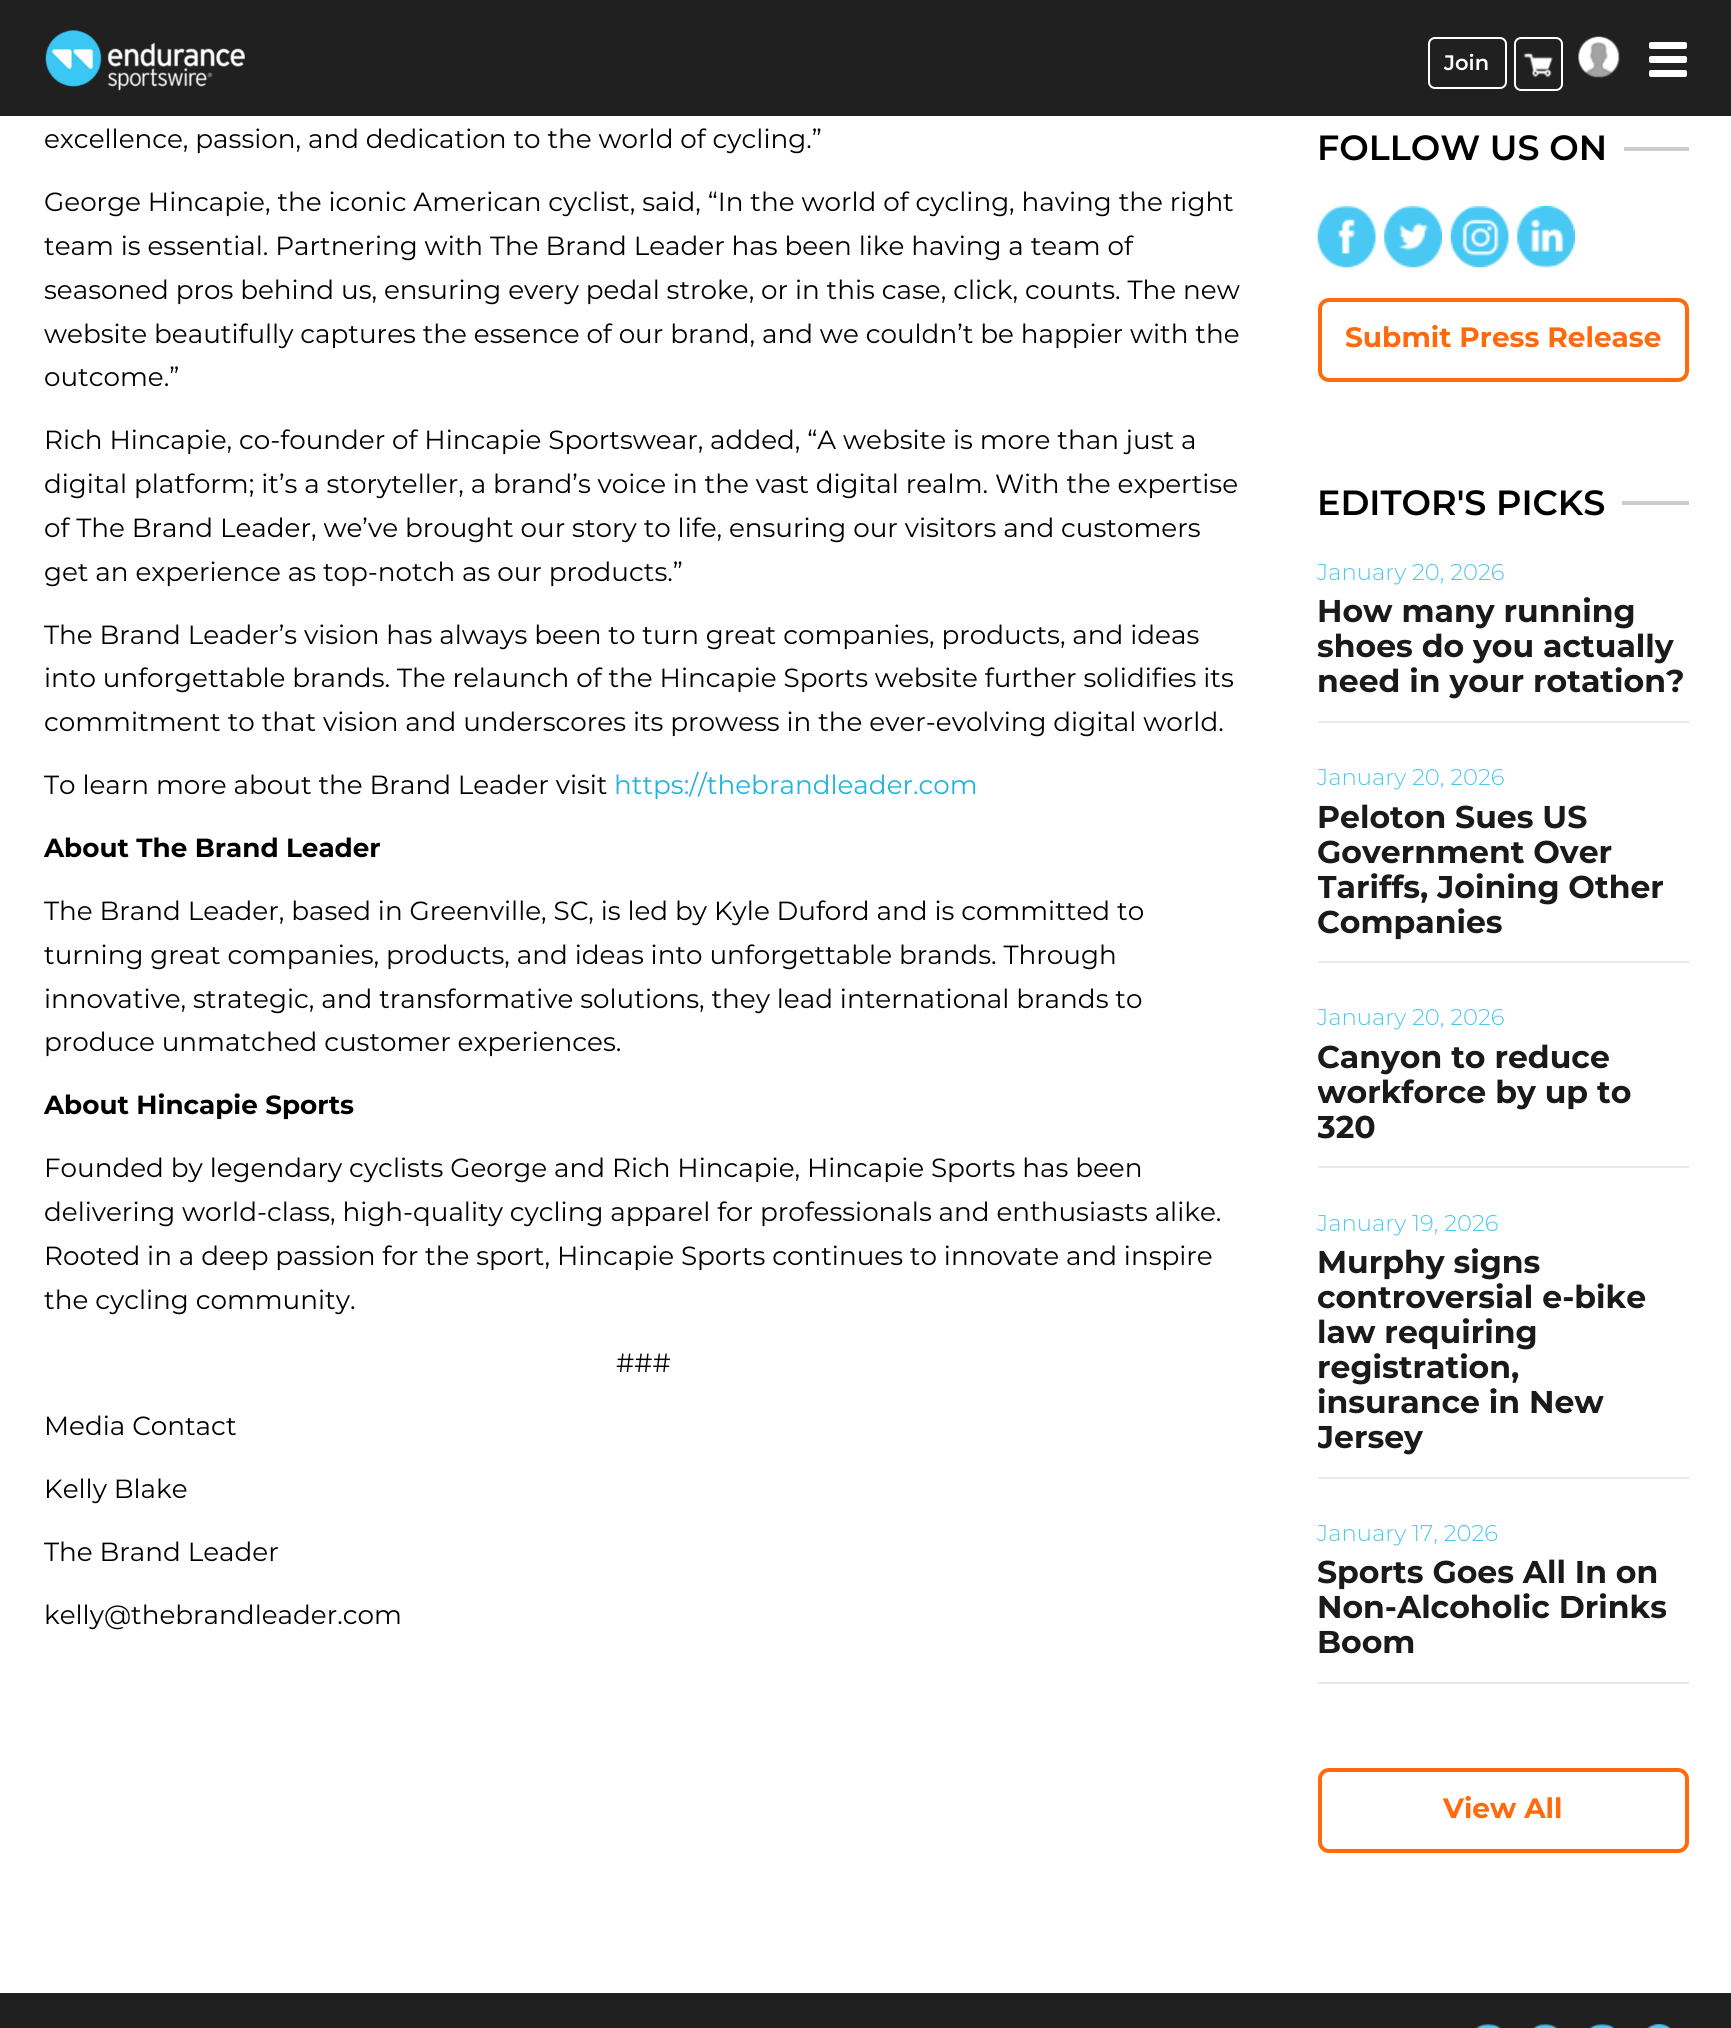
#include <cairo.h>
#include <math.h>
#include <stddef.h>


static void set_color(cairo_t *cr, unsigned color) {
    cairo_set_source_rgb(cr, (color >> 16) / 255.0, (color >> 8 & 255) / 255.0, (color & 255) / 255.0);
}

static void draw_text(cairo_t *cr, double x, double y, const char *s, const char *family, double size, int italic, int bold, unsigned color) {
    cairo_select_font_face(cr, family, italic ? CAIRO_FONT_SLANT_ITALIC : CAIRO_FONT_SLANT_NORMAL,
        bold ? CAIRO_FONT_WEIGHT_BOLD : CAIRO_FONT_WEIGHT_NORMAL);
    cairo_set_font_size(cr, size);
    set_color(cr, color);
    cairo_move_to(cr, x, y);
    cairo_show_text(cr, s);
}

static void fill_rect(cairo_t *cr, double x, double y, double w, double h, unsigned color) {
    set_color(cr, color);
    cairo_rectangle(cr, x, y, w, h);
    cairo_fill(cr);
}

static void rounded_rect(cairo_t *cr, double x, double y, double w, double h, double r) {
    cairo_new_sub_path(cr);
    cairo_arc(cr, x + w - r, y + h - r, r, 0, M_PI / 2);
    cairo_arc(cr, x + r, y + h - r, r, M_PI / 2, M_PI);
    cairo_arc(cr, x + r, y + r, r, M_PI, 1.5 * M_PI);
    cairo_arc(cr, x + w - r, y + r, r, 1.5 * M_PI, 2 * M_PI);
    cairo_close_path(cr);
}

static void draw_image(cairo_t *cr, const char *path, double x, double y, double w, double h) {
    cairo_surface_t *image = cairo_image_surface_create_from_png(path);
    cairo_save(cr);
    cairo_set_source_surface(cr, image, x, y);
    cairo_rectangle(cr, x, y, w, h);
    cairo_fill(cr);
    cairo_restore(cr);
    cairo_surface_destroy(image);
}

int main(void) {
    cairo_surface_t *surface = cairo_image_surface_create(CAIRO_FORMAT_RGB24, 1731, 2028);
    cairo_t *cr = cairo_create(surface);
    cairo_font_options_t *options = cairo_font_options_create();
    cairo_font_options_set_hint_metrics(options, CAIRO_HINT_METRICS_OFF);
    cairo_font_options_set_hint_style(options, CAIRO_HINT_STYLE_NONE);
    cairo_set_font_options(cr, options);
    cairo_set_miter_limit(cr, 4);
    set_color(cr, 0xFFFFFF);
    cairo_paint(cr);
    fill_rect(cr, 0, 0, 1731, 116, 0x202020);
    draw_image(cr, "assets/img1.png", 45, 30, 200, 61);
    rounded_rect(cr, 1429, 38, 77, 50, 6);
    set_color(cr, 0xFFFFFF);
    cairo_stroke(cr);
    draw_text(cr, 1444, 70, "Join", "Montserrat SemiBold", 21, 0, 0, 0xFFFFFF);
    rounded_rect(cr, 1515, 38, 47, 52, 6);
    cairo_stroke(cr);
    draw_image(cr, "assets/img2.png", 1523, 53, 30, 25);
    draw_image(cr, "assets/img3.png", 1578, 36, 42, 42);
    rounded_rect(cr, 1649, 42, 38, 7, 2);
    cairo_fill(cr);
    rounded_rect(cr, 1649, 56, 38, 7, 2);
    cairo_fill(cr);
    rounded_rect(cr, 1649, 70, 38, 7, 2);
    cairo_fill(cr);
    draw_text(cr, 44, 148, "excellence, passion, and dedication to the world of cycling.”", "Montserrat", 26.25, 0, 0, 0x000000);
    draw_text(cr, 44, 211, "George Hincapie, the iconic American cyclist, said, “In the world of cycling, having the right", "Montserrat", 26.25, 0, 0, 0x000000);
    draw_text(cr, 44, 255, "team is essential. Partnering with The Brand Leader has been like having a team of", "Montserrat", 26.25, 0, 0, 0x000000);
    draw_text(cr, 44, 299, "seasoned pros behind us, ensuring every pedal stroke, or in this case, click, counts. The new", "Montserrat", 26.25, 0, 0, 0x000000);
    draw_text(cr, 44, 343, "website beautifully captures the essence of our brand, and we couldn’t be happier with the", "Montserrat", 26.25, 0, 0, 0x000000);
    draw_text(cr, 44, 386, "outcome.”", "Montserrat", 26.25, 0, 0, 0x000000);
    draw_text(cr, 44, 449, "Rich Hincapie, co-founder of Hincapie Sportswear, added, “A website is more than just a", "Montserrat", 26.25, 0, 0, 0x000000);
    draw_text(cr, 44, 493, "digital platform; it’s a storyteller, a brand’s voice in the vast digital realm. With the expertise", "Montserrat", 26.25, 0, 0, 0x000000);
    draw_text(cr, 44, 537, "of The Brand Leader, we’ve brought our story to life, ensuring our visitors and customers", "Montserrat", 26.25, 0, 0, 0x000000);
    draw_text(cr, 44, 581, "get an experience as top-notch as our products.”", "Montserrat", 26.25, 0, 0, 0x000000);
    draw_text(cr, 44, 644, "The Brand Leader’s vision has always been to turn great companies, products, and ideas", "Montserrat", 26.25, 0, 0, 0x000000);
    draw_text(cr, 44, 687, "into unforgettable brands. The relaunch of the Hincapie Sports website further solidifies its", "Montserrat", 26.25, 0, 0, 0x000000);
    draw_text(cr, 44, 731, "commitment to that vision and underscores its prowess in the ever-evolving digital world.", "Montserrat", 26.25, 0, 0, 0x000000);
    draw_text(cr, 44, 794, "To learn more about the Brand Leader visit", "Montserrat", 26.25, 0, 0, 0x000000);
    draw_text(cr, 614, 794, "https://thebrandleader.com", "Montserrat", 26.25, 0, 0, 0x20B3DF);
    draw_text(cr, 44, 857, "About The Brand Leader", "Montserrat", 26.25, 0, 1, 0x000000);
    draw_text(cr, 44, 920, "The Brand Leader, based in Greenville, SC, is led by Kyle Duford and is committed to", "Montserrat", 26.25, 0, 0, 0x000000);
    draw_text(cr, 44, 964, "turning great companies, products, and ideas into unforgettable brands. Through", "Montserrat", 26.25, 0, 0, 0x000000);
    draw_text(cr, 44, 1008, "innovative, strategic, and transformative solutions, they lead international brands to", "Montserrat", 26.25, 0, 0, 0x000000);
    draw_text(cr, 44, 1051, "produce unmatched customer experiences.", "Montserrat", 26.25, 0, 0, 0x000000);
    draw_text(cr, 44, 1114, "About Hincapie Sports", "Montserrat", 26.25, 0, 1, 0x000000);
    draw_text(cr, 44, 1177, "Founded by legendary cyclists George and Rich Hincapie, Hincapie Sports has been", "Montserrat", 26.25, 0, 0, 0x000000);
    draw_text(cr, 44, 1221, "delivering world-class, high-quality cycling apparel for professionals and enthusiasts alike.", "Montserrat", 26.25, 0, 0, 0x000000);
    draw_text(cr, 44, 1265, "Rooted in a deep passion for the sport, Hincapie Sports continues to innovate and inspire", "Montserrat", 26.25, 0, 0, 0x000000);
    draw_text(cr, 44, 1309, "the cycling community.", "Montserrat", 26.25, 0, 0, 0x000000);
    draw_text(cr, 616, 1372, "###", "Montserrat", 26.25, 0, 0, 0x000000);
    draw_text(cr, 44, 1435, "Media Contact", "Montserrat", 26.25, 0, 0, 0x000000);
    draw_text(cr, 44, 1498, "Kelly Blake", "Montserrat", 26.25, 0, 0, 0x000000);
    draw_text(cr, 44, 1561, "The Brand Leader", "Montserrat", 26.25, 0, 0, 0x000000);
    draw_text(cr, 44, 1624, "kelly@thebrandleader.com", "Montserrat", 26.25, 0, 0, 0x000000);
    draw_text(cr, 1317, 160, "FOLLOW US ON", "Montserrat SemiBold", 35, 0, 0, 0x000000);
    fill_rect(cr, 1624, 147, 65, 4, 0xCCCCCC);
    draw_image(cr, "assets/img4.png", 1317, 206, 59, 62);
    draw_image(cr, "assets/img5.png", 1384, 206, 58, 62);
    draw_image(cr, "assets/img6.png", 1450, 206, 59, 62);
    draw_image(cr, "assets/img7.png", 1517, 206, 58, 62);
    rounded_rect(cr, 1320, 300, 367, 80, 9);
    set_color(cr, 0xFF6A0C);
    cairo_set_line_width(cr, 4);
    cairo_stroke(cr);
    draw_text(cr, 1345, 347, "Submit Press Release", "Montserrat", 28, 0, 1, 0xFF6A0C);
    draw_text(cr, 1317, 515, "EDITOR'S PICKS", "Montserrat SemiBold", 35, 0, 0, 0x000000);
    fill_rect(cr, 1622, 501, 67, 4, 0xCCCCCC);
    fill_rect(cr, 1318, 721, 371, 2, 0xE9E9E9);
    draw_text(cr, 1317, 580, "January 20, 2026", "Montserrat Light", 22.75, 0, 0, 0x4DC7EE);
    draw_text(cr, 1317, 622, "How many running", "Montserrat", 31.5, 0, 1, 0x1A1A1A);
    draw_text(cr, 1317, 657, "shoes do you actually", "Montserrat", 31.5, 0, 1, 0x1A1A1A);
    draw_text(cr, 1317, 692, "need in your rotation?", "Montserrat", 31.5, 0, 1, 0x1A1A1A);
    fill_rect(cr, 1318, 961, 371, 2, 0xE9E9E9);
    draw_text(cr, 1317, 785, "January 20, 2026", "Montserrat Light", 22.75, 0, 0, 0x4DC7EE);
    draw_text(cr, 1317, 828, "Peloton Sues US", "Montserrat", 31.5, 0, 1, 0x1A1A1A);
    draw_text(cr, 1317, 863, "Government Over", "Montserrat", 31.5, 0, 1, 0x1A1A1A);
    cairo_save(cr);
    cairo_rectangle(cr, 1318, 754, 371, 193);
    cairo_clip(cr);
    draw_text(cr, 1317, 898, "Tariffs, Joining Other", "Montserrat", 31.5, 0, 1, 0x1A1A1A);
    cairo_restore(cr);
    draw_text(cr, 1317, 933, "Companies", "Montserrat", 31.5, 0, 1, 0x1A1A1A);
    fill_rect(cr, 1318, 1166, 371, 2, 0xE9E9E9);
    draw_text(cr, 1317, 1025, "January 20, 2026", "Montserrat Light", 22.75, 0, 0, 0x4DC7EE);
    draw_text(cr, 1317, 1068, "Canyon to reduce", "Montserrat", 31.5, 0, 1, 0x1A1A1A);
    cairo_save(cr);
    cairo_rectangle(cr, 1318, 994, 371, 158);
    cairo_clip(cr);
    draw_text(cr, 1317, 1103, "workforce by up to", "Montserrat", 31.5, 0, 1, 0x1A1A1A);
    draw_text(cr, 1317, 1138, "320", "Montserrat", 31.5, 0, 1, 0x1A1A1A);
    cairo_restore(cr);
    fill_rect(cr, 1318, 1477, 371, 2, 0xE9E9E9);
    draw_text(cr, 1317, 1231, "January 19, 2026", "Montserrat Light", 22.75, 0, 0, 0x4DC7EE);
    draw_text(cr, 1317, 1273, "Murphy signs", "Montserrat", 31.5, 0, 1, 0x1A1A1A);
    draw_text(cr, 1317, 1308, "controversial e-bike", "Montserrat", 31.5, 0, 1, 0x1A1A1A);
    draw_text(cr, 1317, 1343, "law requiring", "Montserrat", 31.5, 0, 1, 0x1A1A1A);
    draw_text(cr, 1317, 1378, "registration,", "Montserrat", 31.5, 0, 1, 0x1A1A1A);
    draw_text(cr, 1317, 1413, "insurance in New", "Montserrat", 31.5, 0, 1, 0x1A1A1A);
    cairo_save(cr);
    cairo_rectangle(cr, 1318, 1199, 371, 264);
    cairo_clip(cr);
    draw_text(cr, 1317, 1448, "Jersey", "Montserrat", 31.5, 0, 1, 0x1A1A1A);
    cairo_restore(cr);
    fill_rect(cr, 1318, 1682, 371, 2, 0xE9E9E9);
    draw_text(cr, 1317, 1541, "January 17, 2026", "Montserrat Light", 22.75, 0, 0, 0x4DC7EE);
    draw_text(cr, 1317, 1583, "Sports Goes All In on", "Montserrat", 31.5, 0, 1, 0x1A1A1A);
    draw_text(cr, 1317, 1618, "Non-Alcoholic Drinks", "Montserrat", 31.5, 0, 1, 0x1A1A1A);
    draw_text(cr, 1317, 1653, "Boom", "Montserrat", 31.5, 0, 1, 0x1A1A1A);
    rounded_rect(cr, 1320, 1770, 367, 81, 9);
    set_color(cr, 0xFF6A0C);
    cairo_stroke(cr);
    draw_text(cr, 1443, 1818, "View All", "Montserrat", 28, 0, 1, 0xFF6A0C);
    fill_rect(cr, 0, 1993, 1731, 35, 0x202020);
    draw_image(cr, "assets/img8.png", 1475, 2024, 26, 4);
    draw_image(cr, "assets/img9.png", 1533, 2024, 25, 4);
    draw_image(cr, "assets/img10.png", 1589, 2024, 26, 4);
    draw_image(cr, "assets/img11.png", 1647, 2024, 25, 4);
    cairo_surface_write_to_png(surface, "output.png");
    cairo_font_options_destroy(options);
    cairo_destroy(cr);
    cairo_surface_destroy(surface);
    return 0;
}
